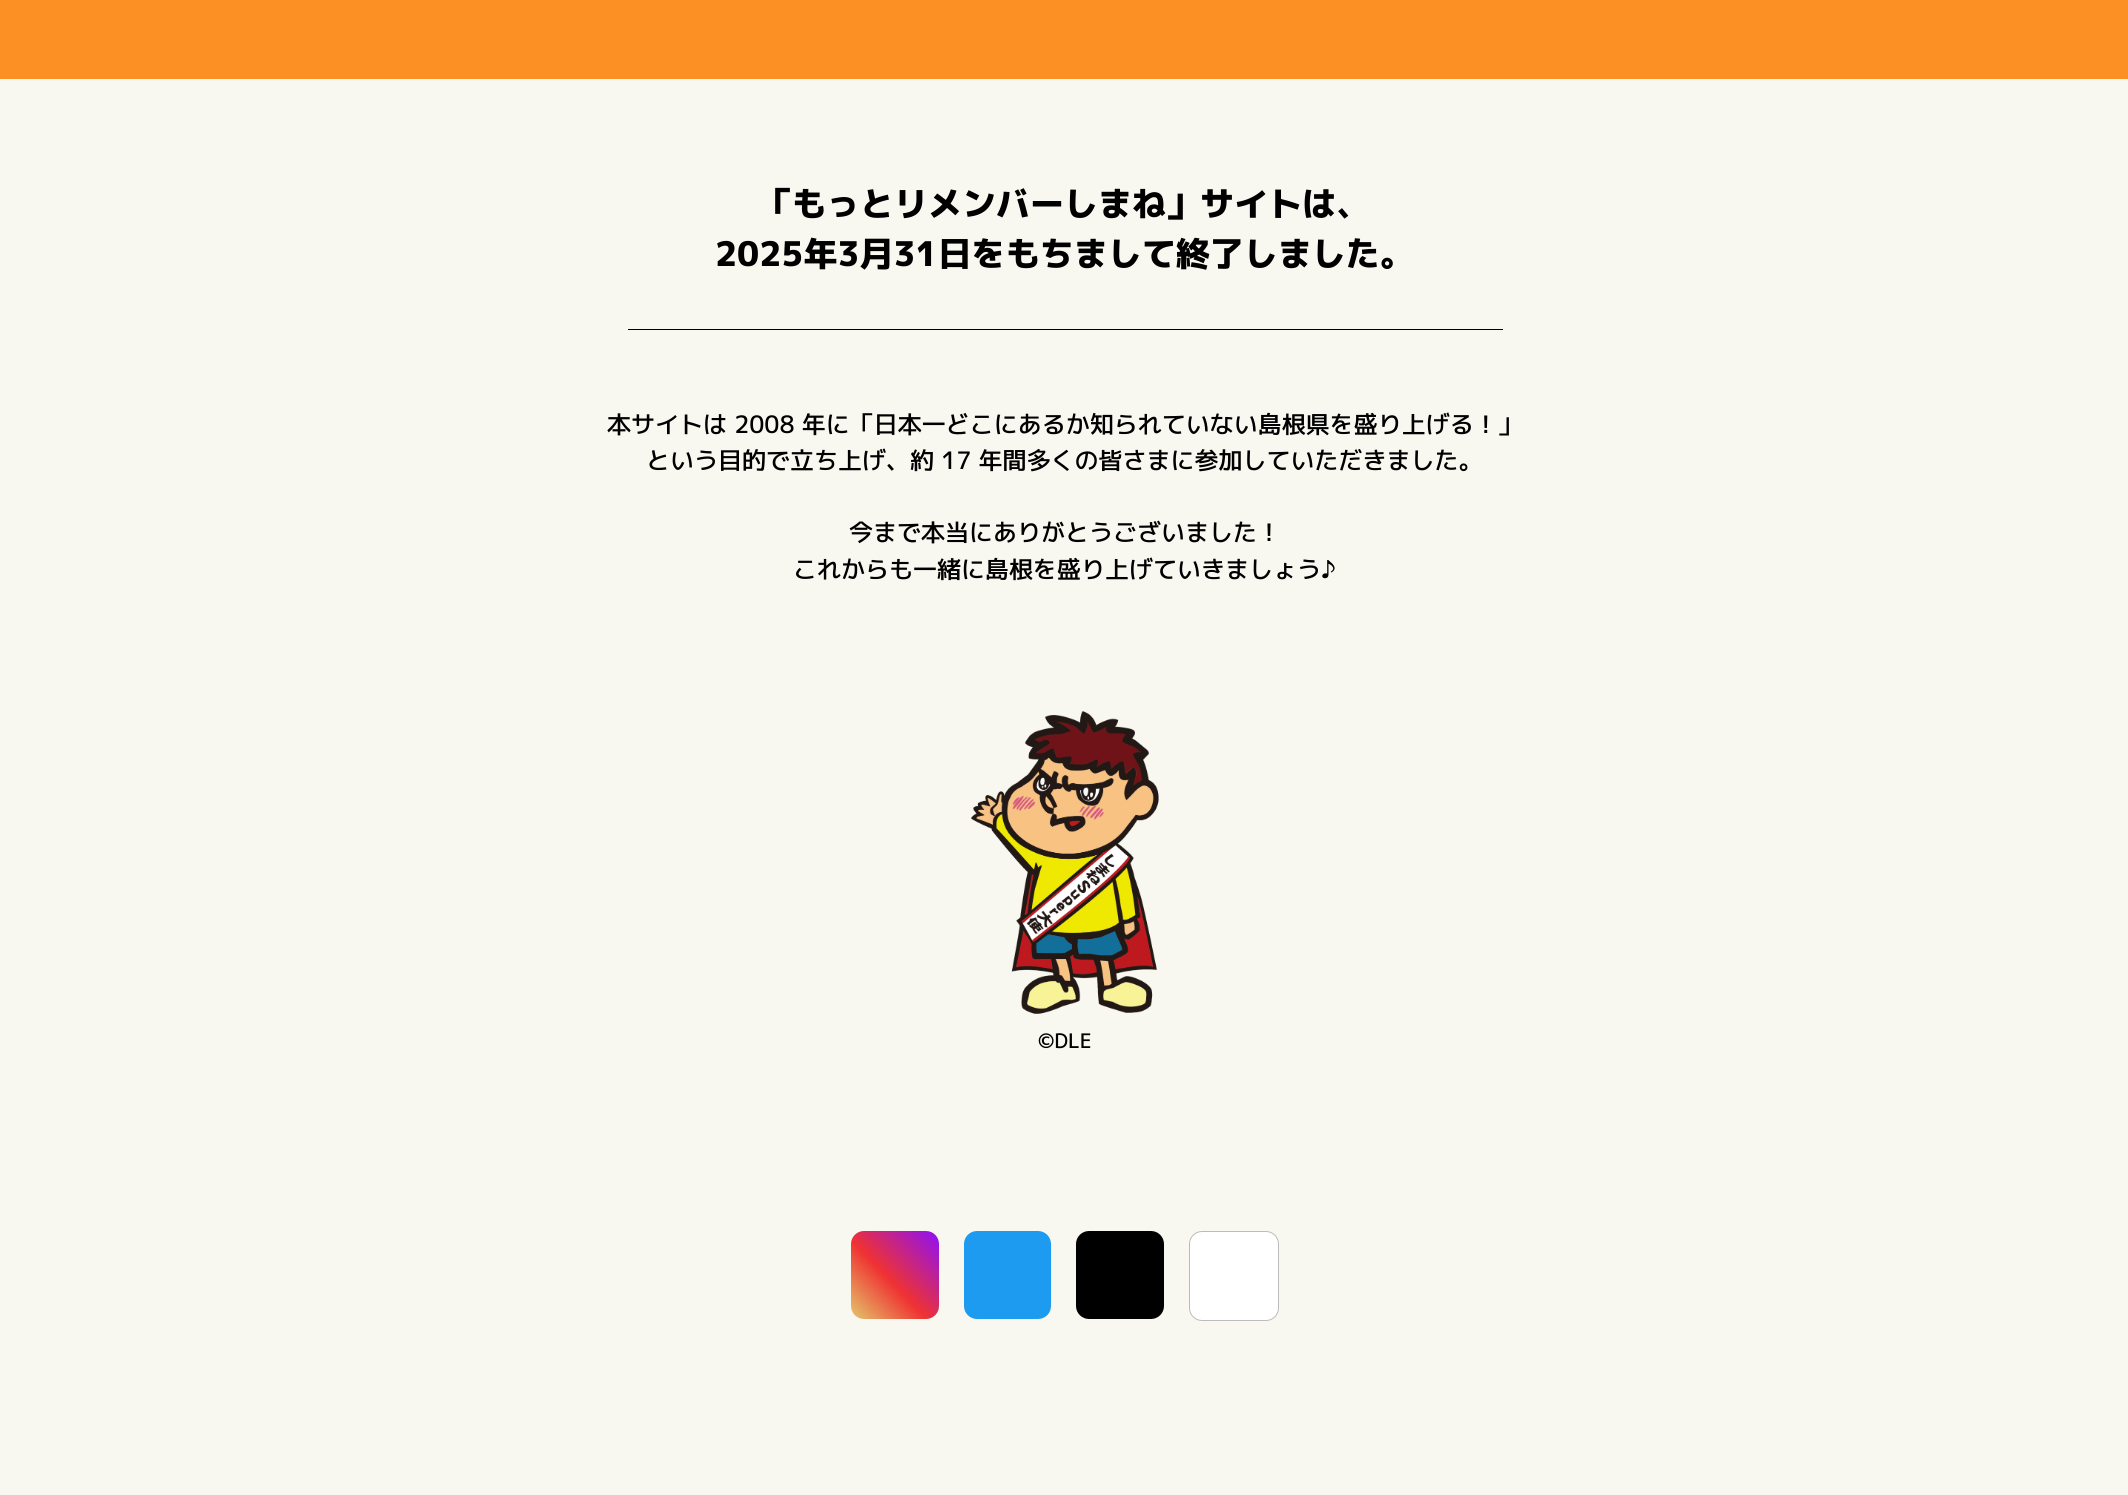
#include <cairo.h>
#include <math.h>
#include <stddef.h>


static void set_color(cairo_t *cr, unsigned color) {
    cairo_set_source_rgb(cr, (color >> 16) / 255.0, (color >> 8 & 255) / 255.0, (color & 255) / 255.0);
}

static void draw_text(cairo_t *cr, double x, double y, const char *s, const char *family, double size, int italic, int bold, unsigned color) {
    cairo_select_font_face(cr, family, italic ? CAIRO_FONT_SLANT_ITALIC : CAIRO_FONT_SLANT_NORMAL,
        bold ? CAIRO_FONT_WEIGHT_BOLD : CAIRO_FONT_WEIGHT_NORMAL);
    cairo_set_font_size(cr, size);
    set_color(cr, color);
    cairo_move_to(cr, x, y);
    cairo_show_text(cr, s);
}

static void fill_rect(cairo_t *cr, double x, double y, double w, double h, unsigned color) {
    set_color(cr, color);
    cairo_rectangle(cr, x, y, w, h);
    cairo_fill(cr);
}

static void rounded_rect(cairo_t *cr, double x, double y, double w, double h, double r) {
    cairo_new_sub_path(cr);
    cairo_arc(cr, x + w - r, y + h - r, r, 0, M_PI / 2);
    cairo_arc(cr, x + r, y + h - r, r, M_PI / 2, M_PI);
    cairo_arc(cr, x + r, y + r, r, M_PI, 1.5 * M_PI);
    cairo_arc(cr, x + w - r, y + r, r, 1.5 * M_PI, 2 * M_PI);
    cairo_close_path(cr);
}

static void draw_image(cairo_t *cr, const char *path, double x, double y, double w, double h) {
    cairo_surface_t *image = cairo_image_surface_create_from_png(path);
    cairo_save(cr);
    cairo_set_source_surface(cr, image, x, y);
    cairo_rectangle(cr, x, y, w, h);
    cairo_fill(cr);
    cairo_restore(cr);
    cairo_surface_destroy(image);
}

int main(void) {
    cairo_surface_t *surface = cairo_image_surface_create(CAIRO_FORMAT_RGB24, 2128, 1495);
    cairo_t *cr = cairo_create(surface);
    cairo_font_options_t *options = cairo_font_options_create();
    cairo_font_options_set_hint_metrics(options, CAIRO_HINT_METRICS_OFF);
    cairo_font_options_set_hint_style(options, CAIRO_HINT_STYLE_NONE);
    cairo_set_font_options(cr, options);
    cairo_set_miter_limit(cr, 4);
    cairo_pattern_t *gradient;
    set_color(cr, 0xF9F8F0);
    cairo_paint(cr);
    fill_rect(cr, 0, 0, 2128, 79, 0xFD9025);
    fill_rect(cr, 628, 329, 875, 1, 0x000000);
    draw_text(cr, 758, 216, "「もっとリメンバーしまね」サイトは、", "M PLUS 1p ExtraBold", 34, 0, 0, 0x000000);
    draw_text(cr, 715, 266, "2025年3月31日をもちまして終了しました。", "M PLUS 1p ExtraBold", 34, 0, 0, 0x000000);
    draw_text(cr, 607, 433, "本サイトは 2008 年に「日本一どこにあるか知られていない島根県を盛り上げる！」", "M PLUS 1p Medium", 24, 0, 0, 0x000000);
    draw_text(cr, 646, 469, "という目的で立ち上げ、約 17 年間多くの皆さまに参加していただきました。", "M PLUS 1p Medium", 24, 0, 0, 0x000000);
    draw_text(cr, 849, 541, "今まで本当にありがとうございました！", "M PLUS 1p Medium", 24, 0, 0, 0x000000);
    draw_text(cr, 793, 578, "これからも一緒に島根を盛り上げていきましょう♪", "M PLUS 1p Medium", 24, 0, 0, 0x000000);
    draw_image(cr, "assets/img1.png", 971, 711, 188, 303);
    draw_text(cr, 1038, 1048, "©DLE", "M PLUS 1p Medium", 20, 0, 0, 0x000000);
    gradient = cairo_pattern_create_linear(850, 1318, 940, 1232);
    cairo_pattern_add_color_stop_rgba(gradient, 0, 0.89, 0.784, 0.427, 1);
    cairo_pattern_add_color_stop_rgba(gradient, 0.44, 0.937, 0.196, 0.196, 1);
    cairo_pattern_add_color_stop_rgba(gradient, 1, 0.553, 0.063, 0.973, 1);
    cairo_set_source(cr, gradient);
    cairo_pattern_destroy(gradient);
    rounded_rect(cr, 851, 1231, 88, 88, 13);
    cairo_fill(cr);
    set_color(cr, 0x1D9BF0);
    rounded_rect(cr, 964, 1231, 87, 88, 13);
    cairo_fill(cr);
    set_color(cr, 0x000000);
    rounded_rect(cr, 1076, 1231, 88, 88, 13);
    cairo_fill(cr);
    set_color(cr, 0xFFFFFF);
    rounded_rect(cr, 1189.5, 1231.5, 89, 89, 12.5);
    cairo_fill_preserve(cr);
    set_color(cr, 0xBCBCBC);
    cairo_set_line_width(cr, 1);
    cairo_stroke(cr);
    cairo_surface_write_to_png(surface, "output.png");
    cairo_font_options_destroy(options);
    cairo_destroy(cr);
    cairo_surface_destroy(surface);
    return 0;
}
